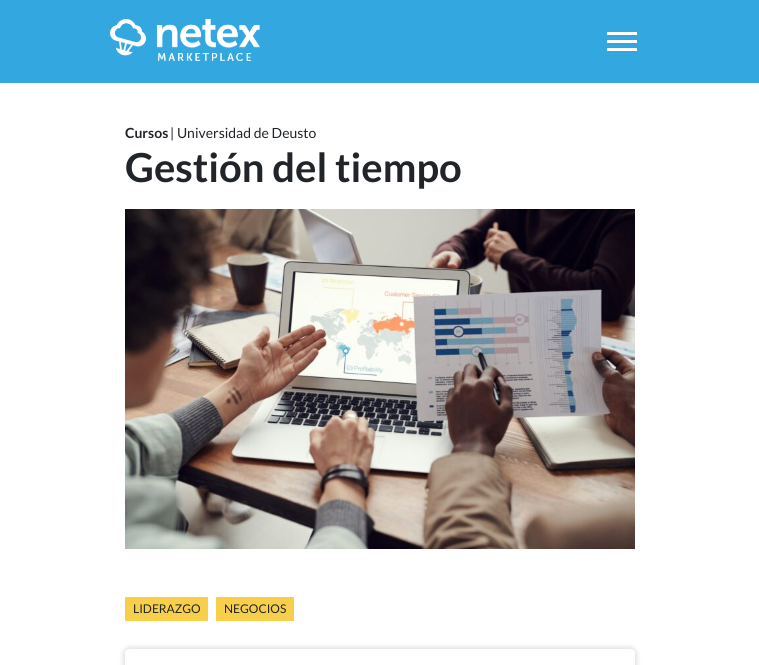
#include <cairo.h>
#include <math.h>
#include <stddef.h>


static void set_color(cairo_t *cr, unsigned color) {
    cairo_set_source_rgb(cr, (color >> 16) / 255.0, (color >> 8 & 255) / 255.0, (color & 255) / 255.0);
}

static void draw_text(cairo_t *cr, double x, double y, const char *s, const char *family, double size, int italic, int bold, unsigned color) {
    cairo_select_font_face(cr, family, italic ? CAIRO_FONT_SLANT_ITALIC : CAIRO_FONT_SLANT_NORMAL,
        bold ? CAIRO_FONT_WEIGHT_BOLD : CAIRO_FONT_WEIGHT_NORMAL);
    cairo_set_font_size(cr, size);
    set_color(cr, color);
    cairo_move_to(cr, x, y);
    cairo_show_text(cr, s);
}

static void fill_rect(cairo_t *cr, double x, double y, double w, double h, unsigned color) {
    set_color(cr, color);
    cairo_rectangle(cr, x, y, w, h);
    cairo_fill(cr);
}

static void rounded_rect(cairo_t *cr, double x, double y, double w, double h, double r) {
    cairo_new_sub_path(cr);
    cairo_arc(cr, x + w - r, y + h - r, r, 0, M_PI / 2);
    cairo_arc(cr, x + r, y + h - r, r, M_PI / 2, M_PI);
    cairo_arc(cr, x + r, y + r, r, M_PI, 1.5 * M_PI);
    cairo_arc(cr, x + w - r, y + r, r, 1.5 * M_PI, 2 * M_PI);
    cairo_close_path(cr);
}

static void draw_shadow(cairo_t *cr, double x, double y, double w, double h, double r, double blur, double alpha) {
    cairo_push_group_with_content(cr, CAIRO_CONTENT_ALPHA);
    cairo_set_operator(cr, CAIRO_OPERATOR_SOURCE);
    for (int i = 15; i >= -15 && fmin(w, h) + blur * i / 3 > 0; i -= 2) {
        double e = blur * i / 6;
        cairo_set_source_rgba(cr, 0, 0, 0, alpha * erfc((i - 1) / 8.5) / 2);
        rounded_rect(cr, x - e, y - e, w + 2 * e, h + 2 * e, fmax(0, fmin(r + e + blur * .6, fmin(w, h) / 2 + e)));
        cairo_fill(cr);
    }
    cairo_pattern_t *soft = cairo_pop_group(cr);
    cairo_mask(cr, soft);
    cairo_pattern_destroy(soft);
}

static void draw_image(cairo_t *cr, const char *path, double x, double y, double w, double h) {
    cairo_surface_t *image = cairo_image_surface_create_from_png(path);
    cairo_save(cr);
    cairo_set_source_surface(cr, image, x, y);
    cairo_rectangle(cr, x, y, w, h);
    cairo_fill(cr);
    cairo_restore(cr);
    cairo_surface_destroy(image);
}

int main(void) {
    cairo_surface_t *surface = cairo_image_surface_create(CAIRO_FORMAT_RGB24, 759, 665);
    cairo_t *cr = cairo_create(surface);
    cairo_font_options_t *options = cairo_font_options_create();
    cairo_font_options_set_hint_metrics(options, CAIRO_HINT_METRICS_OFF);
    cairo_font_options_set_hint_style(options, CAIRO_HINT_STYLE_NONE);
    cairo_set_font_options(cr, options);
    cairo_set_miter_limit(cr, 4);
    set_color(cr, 0xFFFFFF);
    cairo_paint(cr);
    fill_rect(cr, 0, 0, 759, 83, 0x33A7DF);
    draw_image(cr, "assets/img1.png", 109, 19, 151, 42);
    fill_rect(cr, 607, 32, 30, 3, 0xFFFFFF);
    fill_rect(cr, 607, 40, 30, 3, 0xFFFFFF);
    fill_rect(cr, 607, 48, 30, 3, 0xFFFFFF);
    draw_text(cr, 125, 138, "Cursos", "Lato", 14, 0, 1, 0x212529);
    draw_text(cr, 170, 138, "| Universidad de Deusto", "Lato", 14, 0, 0, 0x212529);
    draw_text(cr, 125, 182, "Gestión del tiempo", "Lato", 40, 0, 1, 0x212529);
    draw_image(cr, "assets/img2.png", 125, 209, 510, 340);
    fill_rect(cr, 125, 597, 83, 24, 0xF8CF4B);
    draw_text(cr, 133, 613, "LIDERAZGO", "Lato", 12, 0, 0, 0x212529);
    fill_rect(cr, 216, 597, 78, 24, 0xF8CF4B);
    draw_text(cr, 224, 613, "NEGOCIOS", "Lato", 12, 0, 0, 0x212529);
    cairo_save(cr);
    cairo_set_fill_rule(cr, CAIRO_FILL_RULE_EVEN_ODD);
    cairo_new_path(cr);
    cairo_move_to(cr, 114, 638);
    cairo_line_to(cr, 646, 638);
    cairo_line_to(cr, 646, 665);
    cairo_line_to(cr, 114, 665);
    cairo_close_path(cr);
    cairo_move_to(cr, 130, 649);
    cairo_line_to(cr, 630, 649);
    cairo_curve_to(cr, 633, 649, 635, 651, 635, 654);
    cairo_line_to(cr, 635, 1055);
    cairo_curve_to(cr, 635, 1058, 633, 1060, 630, 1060);
    cairo_line_to(cr, 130, 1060);
    cairo_curve_to(cr, 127, 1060, 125, 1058, 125, 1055);
    cairo_line_to(cr, 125, 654);
    cairo_curve_to(cr, 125, 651, 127, 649, 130, 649);
    cairo_close_path(cr);
    cairo_clip(cr);
    set_color(cr, 0x000000);
    draw_shadow(cr, 123, 647, 514, 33, 7, 2.5, 0.12);
    cairo_restore(cr);
    cairo_surface_write_to_png(surface, "output.png");
    cairo_font_options_destroy(options);
    cairo_destroy(cr);
    cairo_surface_destroy(surface);
    return 0;
}
